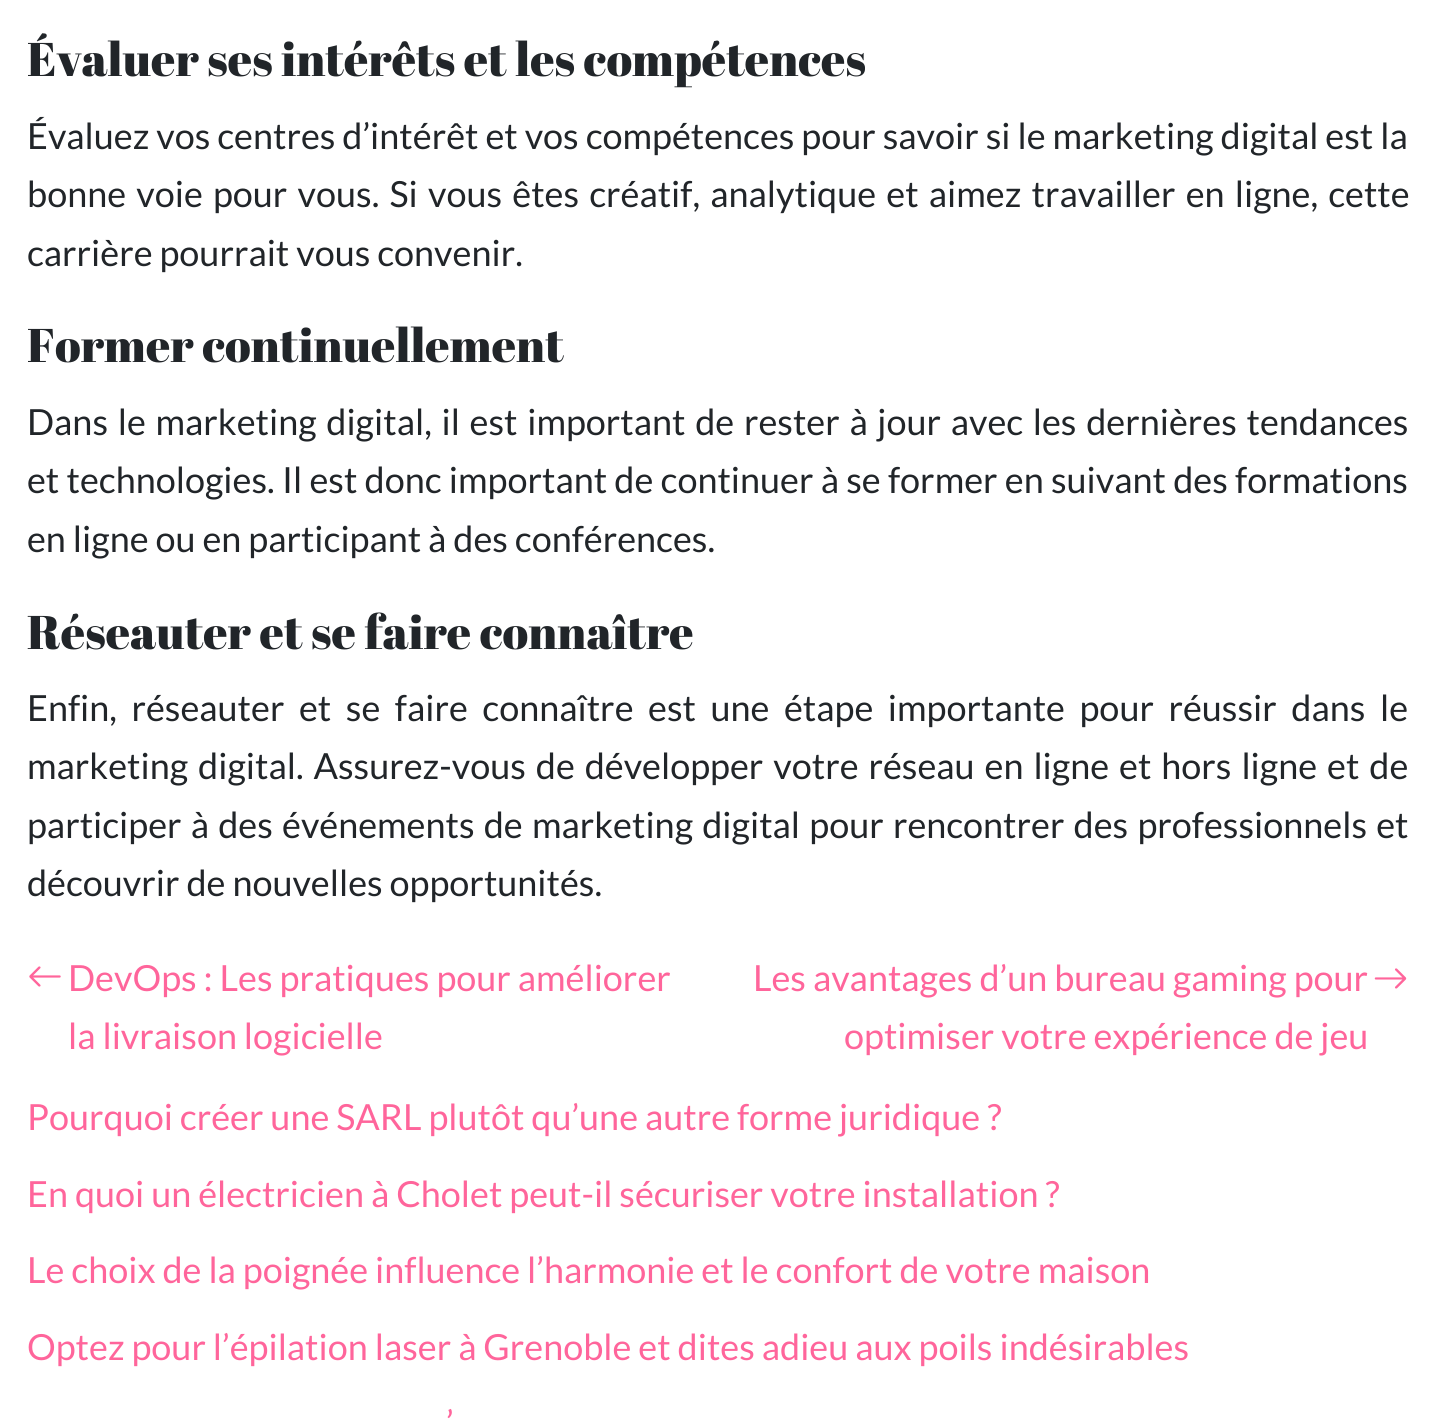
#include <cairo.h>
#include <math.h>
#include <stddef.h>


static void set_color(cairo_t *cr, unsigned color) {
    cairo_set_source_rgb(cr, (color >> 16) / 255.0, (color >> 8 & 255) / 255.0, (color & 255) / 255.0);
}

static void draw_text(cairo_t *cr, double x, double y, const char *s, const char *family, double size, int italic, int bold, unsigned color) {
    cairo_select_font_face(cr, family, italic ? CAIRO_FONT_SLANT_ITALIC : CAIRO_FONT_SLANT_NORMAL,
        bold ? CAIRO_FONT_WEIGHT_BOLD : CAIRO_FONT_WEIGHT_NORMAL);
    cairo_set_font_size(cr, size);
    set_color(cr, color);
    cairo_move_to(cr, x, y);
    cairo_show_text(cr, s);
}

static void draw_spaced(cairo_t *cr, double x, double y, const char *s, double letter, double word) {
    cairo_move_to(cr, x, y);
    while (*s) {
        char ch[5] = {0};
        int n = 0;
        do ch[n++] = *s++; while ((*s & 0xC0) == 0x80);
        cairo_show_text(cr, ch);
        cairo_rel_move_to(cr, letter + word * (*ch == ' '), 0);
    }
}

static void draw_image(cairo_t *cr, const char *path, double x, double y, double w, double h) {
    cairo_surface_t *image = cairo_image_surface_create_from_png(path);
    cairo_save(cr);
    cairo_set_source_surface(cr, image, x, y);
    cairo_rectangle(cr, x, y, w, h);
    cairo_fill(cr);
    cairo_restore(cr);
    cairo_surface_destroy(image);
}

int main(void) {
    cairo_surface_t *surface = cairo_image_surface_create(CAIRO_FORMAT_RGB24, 1435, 1426);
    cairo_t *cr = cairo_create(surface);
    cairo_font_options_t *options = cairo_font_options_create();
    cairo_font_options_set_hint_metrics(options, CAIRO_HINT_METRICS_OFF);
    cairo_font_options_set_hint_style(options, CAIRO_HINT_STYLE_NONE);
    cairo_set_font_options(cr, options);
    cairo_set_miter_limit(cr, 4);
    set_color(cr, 0xFFFFFF);
    cairo_paint(cr);
    draw_text(cr, 27, 76, "Évaluer ses intérêts et les compétences", "Abril Fatface", 47.25, 0, 0, 0x212529);
    draw_text(cr, 27, 149, "Évaluez vos centres d’intérêt et vos compétences pour savoir si le marketing digital est la", "Lato", 36, 0, 0, 0x212529);
    draw_spaced(cr, 27, 207, "bonne voie pour vous. Si vous êtes créatif, analytique et aimez travailler en ligne, cette", 0, 3.25);
    draw_text(cr, 27, 266, "carrière pourrait vous convenir.", "Lato", 36, 0, 0, 0x212529);
    draw_text(cr, 27, 362, "Former continuellement", "Abril Fatface", 47.25, 0, 0, 0x212529);
    cairo_select_font_face(cr, "Lato", CAIRO_FONT_SLANT_NORMAL, CAIRO_FONT_WEIGHT_NORMAL);
    cairo_set_font_size(cr, 36);
    draw_spaced(cr, 27, 435, "Dans le marketing digital, il est important de rester à jour avec les dernières tendances", 0, 2.75);
    draw_spaced(cr, 27, 493, "et technologies. Il est donc important de continuer à se former en suivant des formations", 0, 0.3);
    draw_text(cr, 27, 552, "en ligne ou en participant à des conférences.", "Lato", 36, 0, 0, 0x212529);
    draw_text(cr, 27, 649, "Réseauter et se faire connaître", "Abril Fatface", 47.25, 0, 0, 0x212529);
    cairo_select_font_face(cr, "Lato", CAIRO_FONT_SLANT_NORMAL, CAIRO_FONT_WEIGHT_NORMAL);
    cairo_set_font_size(cr, 36);
    draw_spaced(cr, 27, 721, "Enfin, réseauter et se faire connaître est une étape importante pour réussir dans le", 0, 7.6);
    draw_spaced(cr, 27, 779, "marketing digital. Assurez-vous de développer votre réseau en ligne et hors ligne et de", 0, 3);
    draw_spaced(cr, 27, 838, "participer à des événements de marketing digital pour rencontrer des professionnels et", 0, 2.25);
    draw_text(cr, 27, 896, "découvrir de nouvelles opportunités.", "Lato", 36, 0, 0, 0x212529);
    draw_image(cr, "assets/img1.png", 29, 966, 32, 21);
    draw_text(cr, 68, 991, "DevOps : Les pratiques pour améliorer", "Lato", 36, 0, 0, 0xFF659B);
    draw_text(cr, 68, 1049, "la livraison logicielle", "Lato", 36, 0, 0, 0xFF659B);
    draw_text(cr, 753, 991, "Les avantages d’un bureau gaming pour", "Lato", 36, 0, 0, 0xFF659B);
    draw_image(cr, "assets/img2.png", 1374, 968, 33, 21);
    draw_text(cr, 844, 1049, "optimiser votre expérience de jeu", "Lato", 36, 0, 0, 0xFF659B);
    draw_text(cr, 27, 1130, "Pourquoi créer une SARL plutôt qu’une autre forme juridique ?", "Lato", 36, 0, 0, 0xFF659B);
    draw_text(cr, 27, 1207, "En quoi un électricien à Cholet peut-il sécuriser votre installation ?", "Lato", 36, 0, 0, 0xFF659B);
    draw_text(cr, 27, 1283, "Le choix de la poignée influence l’harmonie et le confort de votre maison", "Lato", 36, 0, 0, 0xFF659B);
    draw_text(cr, 27, 1360, "Optez pour l’épilation laser à Grenoble et dites adieu aux poils indésirables", "Lato", 36, 0, 0, 0xFF659B);
    draw_text(cr, 446, 1436, "’", "Lato", 36, 0, 0, 0xFF659B);
    cairo_surface_write_to_png(surface, "output.png");
    cairo_font_options_destroy(options);
    cairo_destroy(cr);
    cairo_surface_destroy(surface);
    return 0;
}
